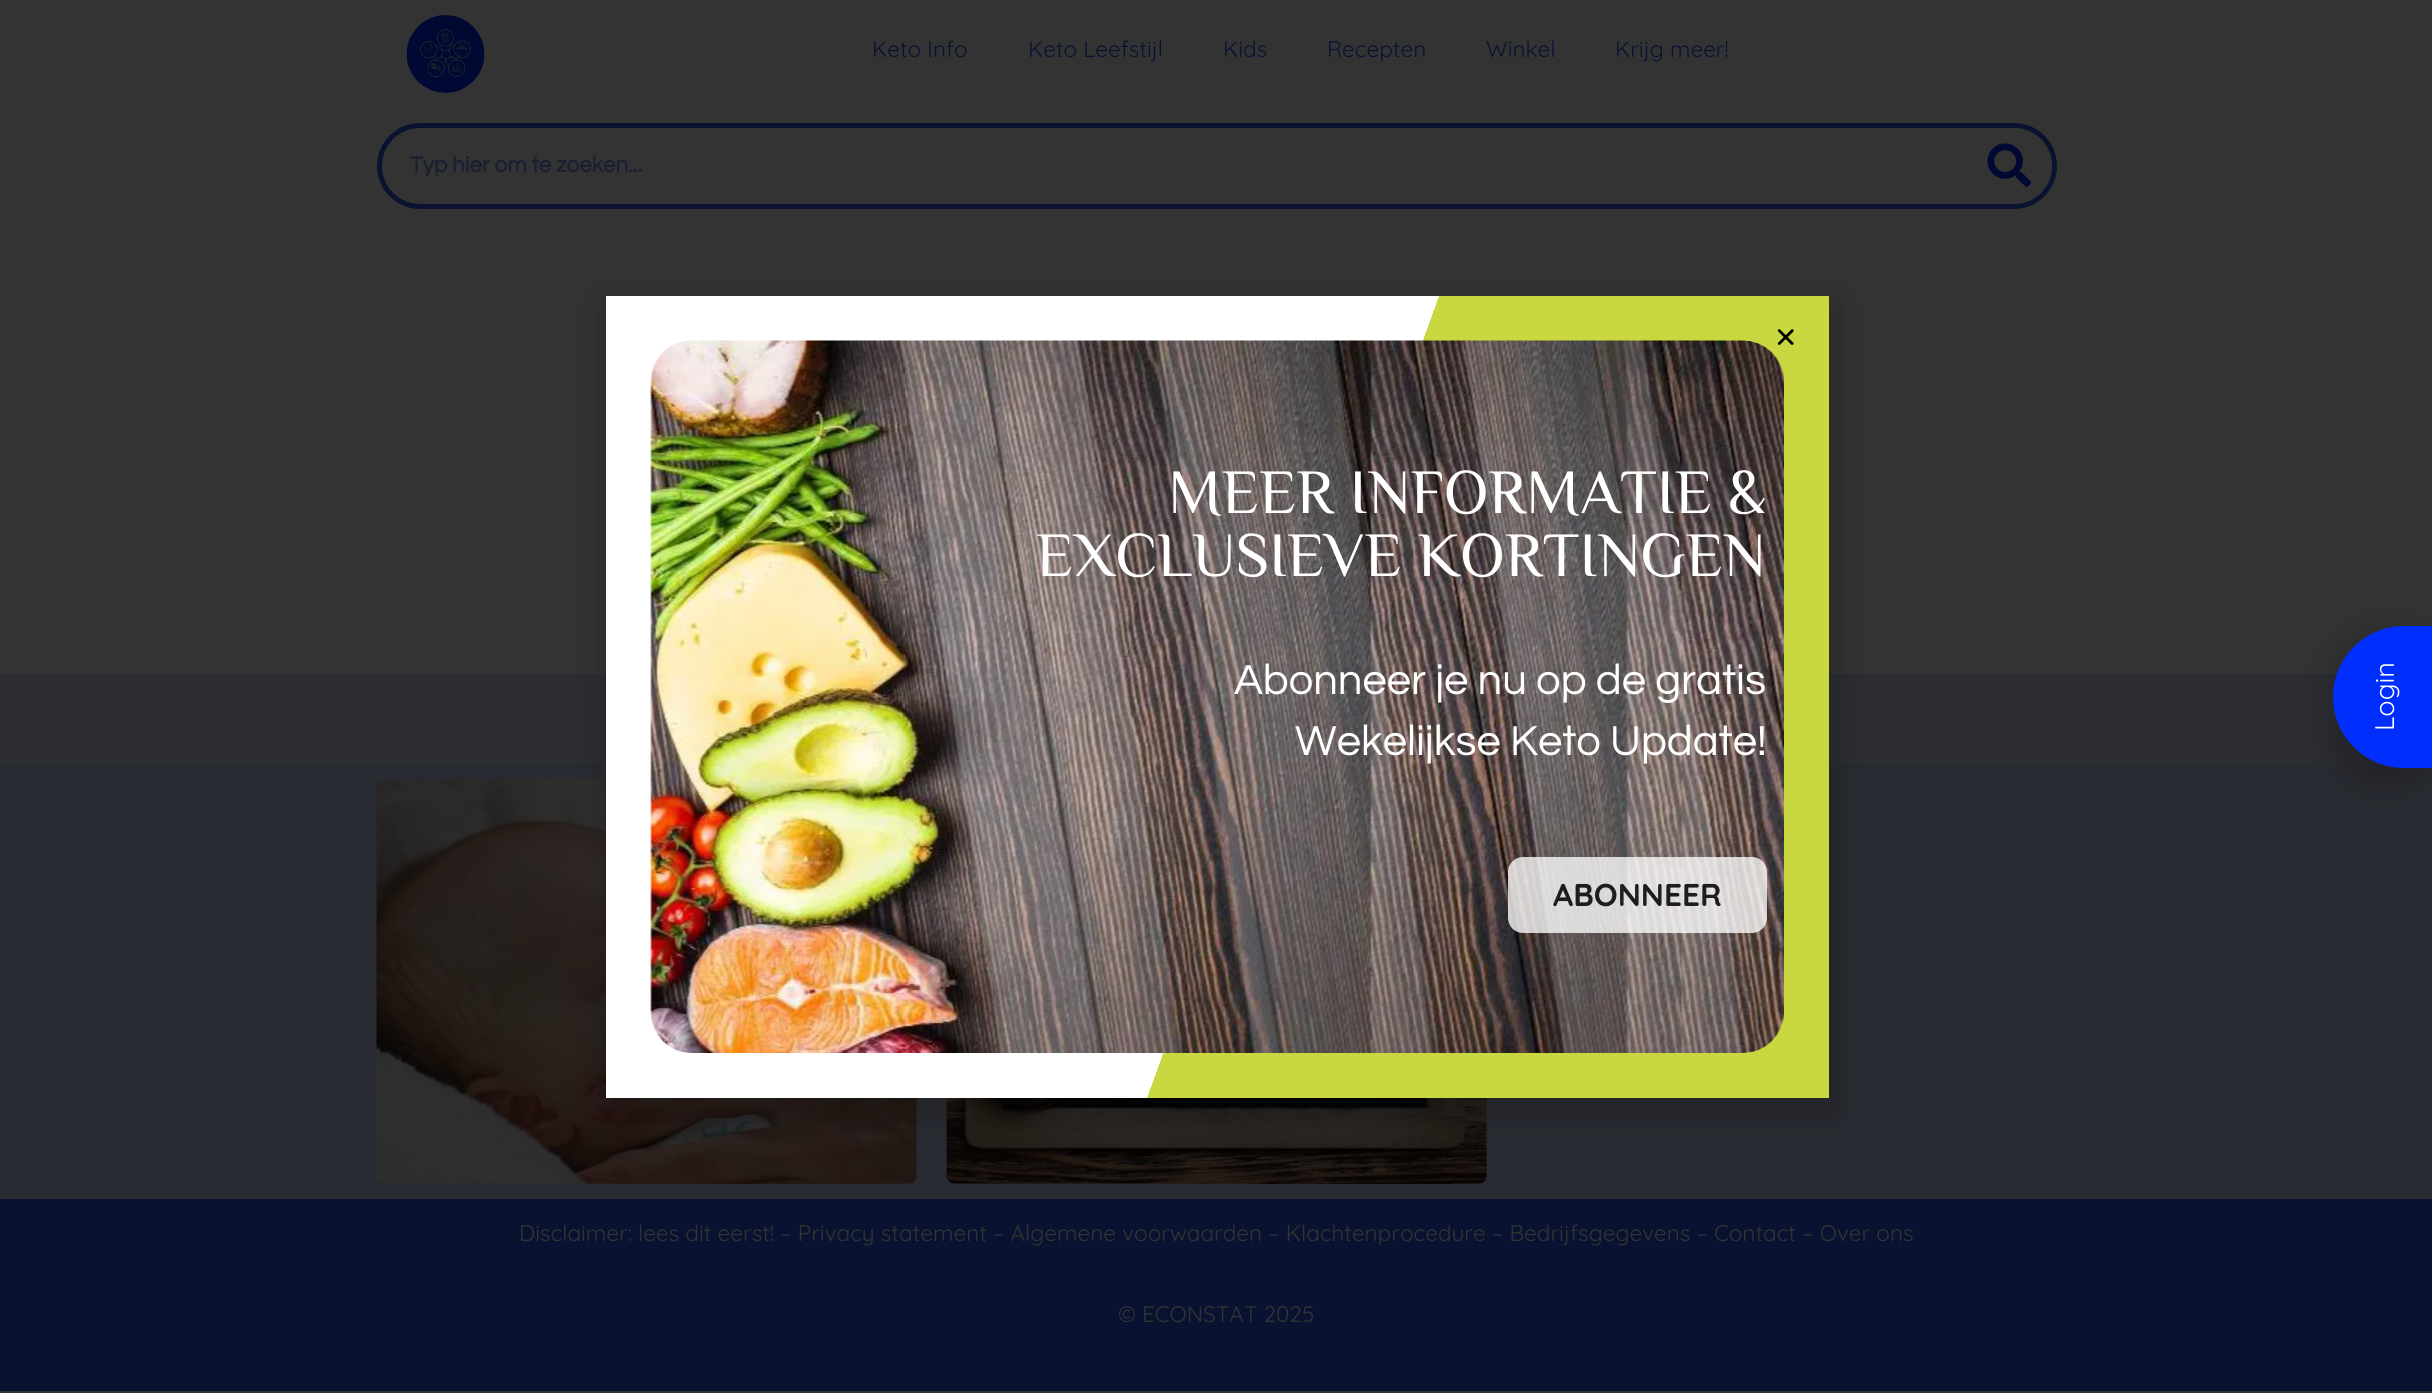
#include <cairo.h>
#include <math.h>
#include <stddef.h>


static void set_color(cairo_t *cr, unsigned color) {
    cairo_set_source_rgb(cr, (color >> 16) / 255.0, (color >> 8 & 255) / 255.0, (color & 255) / 255.0);
}

static void draw_text(cairo_t *cr, double x, double y, const char *s, const char *family, double size, int italic, int bold, unsigned color) {
    cairo_select_font_face(cr, family, italic ? CAIRO_FONT_SLANT_ITALIC : CAIRO_FONT_SLANT_NORMAL,
        bold ? CAIRO_FONT_WEIGHT_BOLD : CAIRO_FONT_WEIGHT_NORMAL);
    cairo_set_font_size(cr, size);
    set_color(cr, color);
    cairo_move_to(cr, x, y);
    cairo_show_text(cr, s);
}

static void fill_rect(cairo_t *cr, double x, double y, double w, double h, unsigned color) {
    set_color(cr, color);
    cairo_rectangle(cr, x, y, w, h);
    cairo_fill(cr);
}

static void rounded_rect(cairo_t *cr, double x, double y, double w, double h, double r) {
    cairo_new_sub_path(cr);
    cairo_arc(cr, x + w - r, y + h - r, r, 0, M_PI / 2);
    cairo_arc(cr, x + r, y + h - r, r, M_PI / 2, M_PI);
    cairo_arc(cr, x + r, y + r, r, M_PI, 1.5 * M_PI);
    cairo_arc(cr, x + w - r, y + r, r, 1.5 * M_PI, 2 * M_PI);
    cairo_close_path(cr);
}

static void draw_shadow(cairo_t *cr, double x, double y, double w, double h, double r, double blur, double alpha) {
    cairo_push_group_with_content(cr, CAIRO_CONTENT_ALPHA);
    cairo_set_operator(cr, CAIRO_OPERATOR_SOURCE);
    for (int i = 15; i >= -15 && fmin(w, h) + blur * i / 3 > 0; i -= 2) {
        double e = blur * i / 6;
        cairo_set_source_rgba(cr, 0, 0, 0, alpha * erfc((i - 1) / 8.5) / 2);
        rounded_rect(cr, x - e, y - e, w + 2 * e, h + 2 * e, fmax(0, fmin(r + e + blur * .6, fmin(w, h) / 2 + e)));
        cairo_fill(cr);
    }
    cairo_pattern_t *soft = cairo_pop_group(cr);
    cairo_mask(cr, soft);
    cairo_pattern_destroy(soft);
}

static void draw_image(cairo_t *cr, const char *path, double x, double y, double w, double h) {
    cairo_surface_t *image = cairo_image_surface_create_from_png(path);
    cairo_save(cr);
    cairo_set_source_surface(cr, image, x, y);
    cairo_rectangle(cr, x, y, w, h);
    cairo_fill(cr);
    cairo_restore(cr);
    cairo_surface_destroy(image);
}

int main(void) {
    cairo_surface_t *surface = cairo_image_surface_create(CAIRO_FORMAT_RGB24, 2432, 1393);
    cairo_t *cr = cairo_create(surface);
    cairo_font_options_t *options = cairo_font_options_create();
    cairo_font_options_set_hint_metrics(options, CAIRO_HINT_METRICS_OFF);
    cairo_font_options_set_hint_style(options, CAIRO_HINT_STYLE_NONE);
    cairo_set_font_options(cr, options);
    cairo_set_miter_limit(cr, 4);
    cairo_pattern_t *gradient;
    set_color(cr, 0x333333);
    cairo_paint(cr);
    draw_image(cr, "assets/img1.png", 406, 15, 79, 78);
    draw_text(cr, 872, 57, "Keto Info", "Quicksand", 22.5, 0, 0, 0x091331);
    draw_text(cr, 1028, 57, "Keto Leefstijl", "Quicksand", 22.5, 0, 0, 0x091331);
    draw_text(cr, 1223, 57, "Kids", "Quicksand", 22.5, 0, 0, 0x091331);
    draw_text(cr, 1327, 57, "Recepten", "Quicksand", 22.5, 0, 0, 0x091331);
    draw_text(cr, 1486, 57, "Winkel", "Quicksand", 22.5, 0, 0, 0x091331);
    draw_text(cr, 1615, 57, "Krijg meer!", "Quicksand", 22.5, 0, 0, 0x091331);
    rounded_rect(cr, 379.5, 125.5, 1675, 81, 40.5);
    cairo_set_line_width(cr, 5);
    cairo_stroke(cr);
    draw_text(cr, 410, 172, "Typ hier om te zoeken...", "Questrial", 22.5, 0, 1, 0x1A2032);
    set_color(cr, 0x333333);
    cairo_new_path(cr);
    cairo_move_to(cr, 1967, 128);
    cairo_line_to(cr, 2014, 128);
    cairo_curve_to(cr, 2035, 128, 2052, 145, 2052, 166);
    cairo_curve_to(cr, 2052, 187, 2035, 204, 2014, 204);
    cairo_line_to(cr, 1967, 204);
    cairo_close_path(cr);
    cairo_fill(cr);
    draw_image(cr, "assets/img2.png", 1987, 143, 44, 44);
    fill_rect(cr, 0, 674, 2381, 90, 0x2C2D33);
    fill_rect(cr, 0, 764, 2432, 435, 0x292B32);
    set_color(cr, 0x25272D);
    rounded_rect(cr, 377, 779, 540, 405, 8);
    cairo_fill(cr);
    draw_image(cr, "assets/img3.png", 376, 778, 541, 406);
    rounded_rect(cr, 947, 779, 540, 405, 8);
    cairo_fill(cr);
    draw_image(cr, "assets/img4.png", 946, 1098, 541, 86);
    fill_rect(cr, 0, 1199, 2432, 192, 0x091331);
    draw_text(cr, 519, 1241, "Disclaimer: lees dit eerst! – Privacy statement – Algemene voorwaarden – Klachtenprocedure – Bedrijfsgegevens – Contact – Over ons", "Quicksand", 22.5, 0, 0, 0x333333);
    draw_text(cr, 1118, 1322, "© ECONSTAT 2025", "Quicksand", 22.5, 0, 0, 0x333333);
    set_color(cr, 0x000000);
    draw_shadow(cr, 605, 303, 1231, 812, 0, 17, 0.2);
    gradient = cairo_pattern_create_linear(1886, 940, 549, 453);
    cairo_pattern_add_color_stop_rgba(gradient, 0.45, 0.788, 0.847, 0.251, 1);
    cairo_pattern_add_color_stop_rgba(gradient, 0.45, 1, 1, 1, 1);
    cairo_set_source(cr, gradient);
    cairo_pattern_destroy(gradient);
    cairo_rectangle(cr, 606, 296, 1223, 802);
    cairo_fill(cr);
    draw_image(cr, "assets/img6.png", 650, 340, 1134, 713);
    draw_image(cr, "assets/img5.png", 1777, 329, 17, 16);
    draw_text(cr, 1168, 513, "MEER INFORMATIE &", "Philosopher", 63, 0, 0, 0xFFFFFF);
    draw_text(cr, 1036, 576, "EXCLUSIEVE KORTINGEN", "Philosopher", 63, 0, 0, 0xFFFFFF);
    draw_text(cr, 1234, 694, "Abonneer je nu op de gratis", "Questrial", 43.5, 0, 0, 0xFFFFFF);
    draw_text(cr, 1295, 755, "Wekelijkse Keto Update!", "Questrial", 43.5, 0, 0, 0xFFFFFF);
    cairo_set_source_rgba(cr, 1, 1, 1, 0.77);
    rounded_rect(cr, 1508, 857, 259, 76, 15);
    cairo_fill(cr);
    draw_text(cr, 1553, 906, "ABONNEER", "Quicksand", 31.5, 0, 1, 0x1D1C1F);
    set_color(cr, 0x000000);
    draw_shadow(cr, 2331, 633, 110, 152, 76, 17, 0.2);
    set_color(cr, 0x002EFC);
    cairo_new_path(cr);
    cairo_move_to(cr, 2404, 627);
    cairo_line_to(cr, 2432, 627);
    cairo_line_to(cr, 2432, 767);
    cairo_line_to(cr, 2404, 767);
    cairo_curve_to(cr, 2365.5, 767, 2334, 735.5, 2334, 697);
    cairo_curve_to(cr, 2334, 658.5, 2365.5, 627, 2404, 627);
    cairo_close_path(cr);
    cairo_fill_preserve(cr);
    cairo_set_line_width(cr, 2);
    cairo_stroke(cr);
    cairo_save(cr);
    cairo_translate(cr, 2394, 731);
    cairo_rotate(cr, -90 * M_PI / 180);
    draw_text(cr, 0, 0, "Login", "Quicksand", 27, 0, 0, 0xFFFFFF);
    cairo_restore(cr);
    cairo_surface_write_to_png(surface, "output.png");
    cairo_font_options_destroy(options);
    cairo_destroy(cr);
    cairo_surface_destroy(surface);
    return 0;
}
